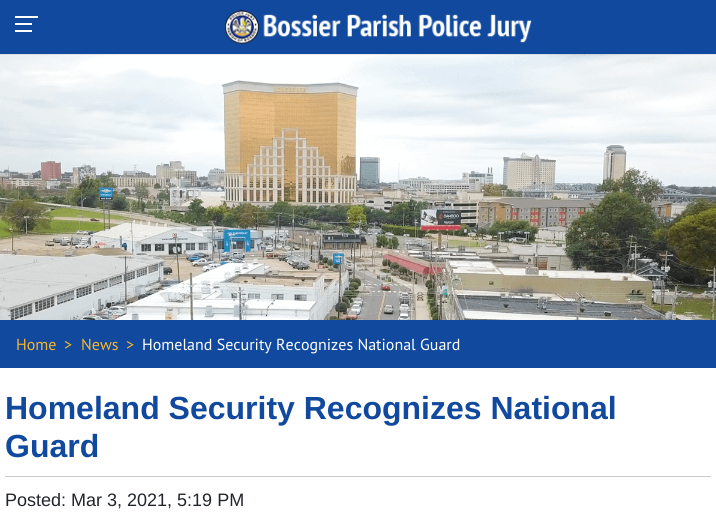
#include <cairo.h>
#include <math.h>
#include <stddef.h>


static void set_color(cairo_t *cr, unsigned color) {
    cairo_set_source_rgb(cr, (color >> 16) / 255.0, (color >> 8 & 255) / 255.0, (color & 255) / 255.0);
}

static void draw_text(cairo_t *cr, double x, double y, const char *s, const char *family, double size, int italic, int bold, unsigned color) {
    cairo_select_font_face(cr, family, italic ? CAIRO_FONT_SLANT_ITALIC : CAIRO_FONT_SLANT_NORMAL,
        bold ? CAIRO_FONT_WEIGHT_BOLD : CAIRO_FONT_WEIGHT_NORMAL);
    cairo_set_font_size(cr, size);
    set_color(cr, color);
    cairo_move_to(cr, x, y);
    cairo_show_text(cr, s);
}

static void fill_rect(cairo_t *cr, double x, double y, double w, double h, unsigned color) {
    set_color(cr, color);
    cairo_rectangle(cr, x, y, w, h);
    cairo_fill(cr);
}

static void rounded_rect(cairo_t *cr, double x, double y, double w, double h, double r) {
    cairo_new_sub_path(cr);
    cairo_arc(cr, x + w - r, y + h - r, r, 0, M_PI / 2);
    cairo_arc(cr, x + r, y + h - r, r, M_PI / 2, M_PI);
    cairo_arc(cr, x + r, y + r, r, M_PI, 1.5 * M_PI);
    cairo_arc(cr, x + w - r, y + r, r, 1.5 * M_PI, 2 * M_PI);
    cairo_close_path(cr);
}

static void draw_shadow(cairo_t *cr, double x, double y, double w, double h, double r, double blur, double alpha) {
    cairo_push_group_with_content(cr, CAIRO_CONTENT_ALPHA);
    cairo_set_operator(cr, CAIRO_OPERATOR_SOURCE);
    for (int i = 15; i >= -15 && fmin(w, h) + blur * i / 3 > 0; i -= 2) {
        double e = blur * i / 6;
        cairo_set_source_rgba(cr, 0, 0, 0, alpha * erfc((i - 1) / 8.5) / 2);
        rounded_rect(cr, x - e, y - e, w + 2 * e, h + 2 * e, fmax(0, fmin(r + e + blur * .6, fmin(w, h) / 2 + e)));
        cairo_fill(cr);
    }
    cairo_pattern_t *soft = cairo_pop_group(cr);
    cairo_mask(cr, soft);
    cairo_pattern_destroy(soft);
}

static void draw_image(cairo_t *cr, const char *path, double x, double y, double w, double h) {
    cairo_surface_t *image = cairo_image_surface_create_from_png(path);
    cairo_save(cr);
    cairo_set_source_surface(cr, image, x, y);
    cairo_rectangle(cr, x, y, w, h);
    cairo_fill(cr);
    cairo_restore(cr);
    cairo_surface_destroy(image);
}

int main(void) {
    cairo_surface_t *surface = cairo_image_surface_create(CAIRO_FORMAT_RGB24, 716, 529);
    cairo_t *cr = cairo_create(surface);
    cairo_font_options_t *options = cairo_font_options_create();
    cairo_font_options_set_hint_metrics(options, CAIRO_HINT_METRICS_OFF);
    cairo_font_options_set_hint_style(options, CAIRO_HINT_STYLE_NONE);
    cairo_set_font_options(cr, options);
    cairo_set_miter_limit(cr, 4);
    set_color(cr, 0xFFFFFF);
    cairo_paint(cr);
    fill_rect(cr, 0, 289, 716, 79, 0x10499E);
    draw_image(cr, "assets/img2.png", 0, 54, 716, 266);
    set_color(cr, 0x000000);
    draw_shadow(cr, 0, 0, 716, 54, 0, 0.5, 0.3);
    fill_rect(cr, 0, 0, 716, 54, 0x10499E);
    fill_rect(cr, 15, 23, 17, 2, 0xFFFFFF);
    fill_rect(cr, 15, 16, 23, 2, 0xFFFFFF);
    fill_rect(cr, 15, 30, 17, 2, 0xFFFFFF);
    draw_image(cr, "assets/img1.png", 225, 10, 307, 35);
    draw_text(cr, 16, 350, "Home", "PT Sans", 16, 0, 0, 0xF6B62E);
    draw_text(cr, 64, 350, ">", "PT Sans", 16, 0, 0, 0xF6B62E);
    draw_text(cr, 81, 350, "News", "PT Sans", 16, 0, 0, 0xF6B62E);
    draw_text(cr, 126, 350, ">", "PT Sans", 16, 0, 0, 0xF6B62E);
    draw_text(cr, 142, 350, "Homeland Security Recognizes National Guard", "PT Sans", 16, 0, 0, 0xFFFFFF);
    fill_rect(cr, 5, 476, 706, 1, 0xCCCCCC);
    draw_text(cr, 5, 419, "Homeland Security Recognizes National", "Liberation Sans", 32, 0, 1, 0x10499E);
    draw_text(cr, 5, 457, "Guard", "Liberation Sans", 32, 0, 1, 0x10499E);
    draw_text(cr, 5, 506, "Posted: Mar 3, 2021, 5:19 PM", "Liberation Sans", 18, 0, 0, 0x212529);
    cairo_surface_write_to_png(surface, "output.png");
    cairo_font_options_destroy(options);
    cairo_destroy(cr);
    cairo_surface_destroy(surface);
    return 0;
}
